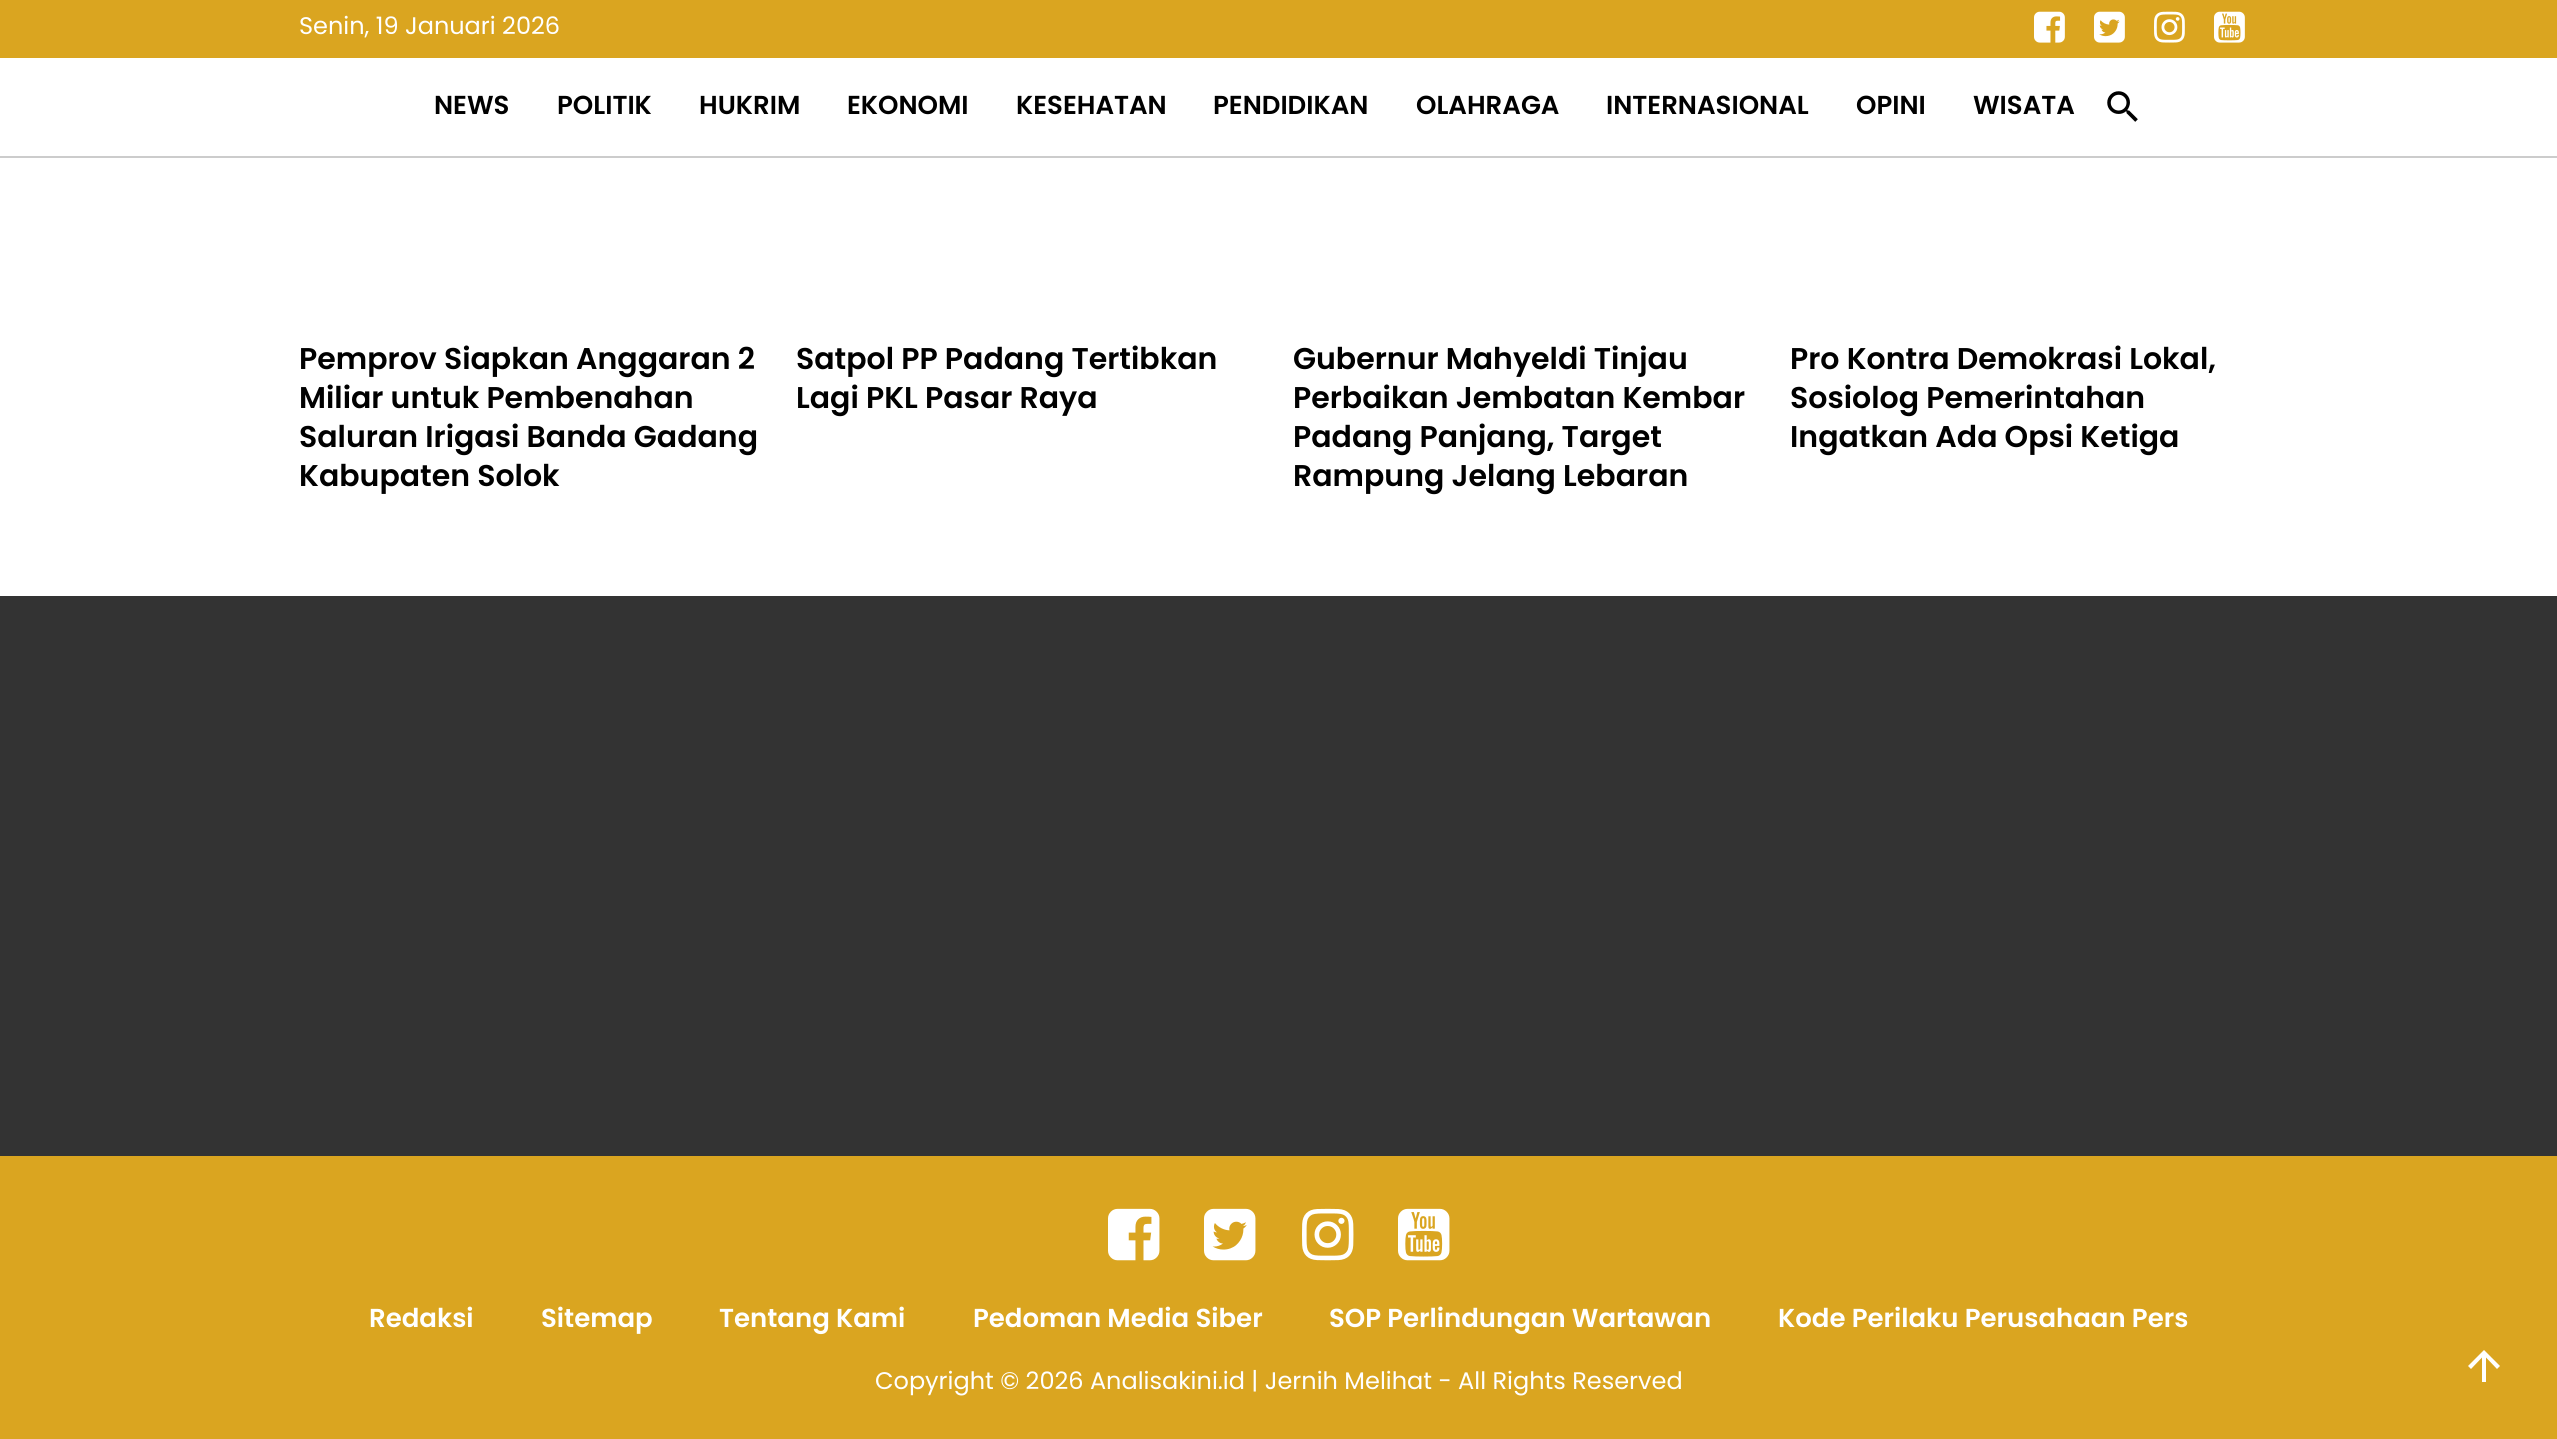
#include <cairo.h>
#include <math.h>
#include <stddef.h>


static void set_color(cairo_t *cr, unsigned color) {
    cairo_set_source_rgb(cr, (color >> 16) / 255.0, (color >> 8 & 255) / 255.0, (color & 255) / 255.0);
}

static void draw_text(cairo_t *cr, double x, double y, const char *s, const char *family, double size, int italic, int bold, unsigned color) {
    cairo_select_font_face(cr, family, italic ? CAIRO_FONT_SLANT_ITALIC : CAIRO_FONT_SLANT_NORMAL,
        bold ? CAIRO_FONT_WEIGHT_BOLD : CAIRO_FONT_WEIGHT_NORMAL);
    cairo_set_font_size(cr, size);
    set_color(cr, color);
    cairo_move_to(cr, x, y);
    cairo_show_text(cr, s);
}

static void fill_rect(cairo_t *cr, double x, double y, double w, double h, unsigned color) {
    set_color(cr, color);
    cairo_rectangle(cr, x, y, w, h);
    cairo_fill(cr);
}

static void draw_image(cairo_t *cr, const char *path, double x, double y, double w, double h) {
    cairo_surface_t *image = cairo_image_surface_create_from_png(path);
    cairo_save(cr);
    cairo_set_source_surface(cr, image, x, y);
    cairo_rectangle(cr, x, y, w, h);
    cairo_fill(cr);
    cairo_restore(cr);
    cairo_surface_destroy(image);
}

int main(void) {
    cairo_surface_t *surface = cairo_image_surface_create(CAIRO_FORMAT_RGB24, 2557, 1439);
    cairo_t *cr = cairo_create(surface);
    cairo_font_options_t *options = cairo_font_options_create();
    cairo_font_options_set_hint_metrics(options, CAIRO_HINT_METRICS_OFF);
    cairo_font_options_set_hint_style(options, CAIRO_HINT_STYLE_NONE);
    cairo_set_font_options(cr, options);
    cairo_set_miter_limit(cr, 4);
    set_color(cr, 0xFFFFFF);
    cairo_paint(cr);
    fill_rect(cr, 0, 0, 2557, 58, 0xDAA520);
    draw_text(cr, 299, 34, "Senin, 19 Januari 2026", "Poppins", 24, 0, 0, 0xFFFFFF);
    draw_image(cr, "assets/img1.png", 2034, 11, 31, 32);
    draw_image(cr, "assets/img2.png", 2094, 11, 31, 32);
    draw_image(cr, "assets/img3.png", 2154, 11, 31, 32);
    draw_image(cr, "assets/img4.png", 2214, 11, 31, 32);
    fill_rect(cr, 0, 156, 2557, 2, 0xCCCCCC);
    draw_text(cr, 434, 114, "NEWS", "Poppins SemiBold", 26, 0, 0, 0x000000);
    draw_text(cr, 557, 114, "POLITIK", "Poppins SemiBold", 26, 0, 0, 0x000000);
    draw_text(cr, 699, 114, "HUKRIM", "Poppins SemiBold", 26, 0, 0, 0x000000);
    draw_text(cr, 847, 114, "EKONOMI", "Poppins SemiBold", 26, 0, 0, 0x000000);
    draw_text(cr, 1016, 114, "KESEHATAN", "Poppins SemiBold", 26, 0, 0, 0x000000);
    draw_text(cr, 1213, 114, "PENDIDIKAN", "Poppins SemiBold", 26, 0, 0, 0x000000);
    draw_text(cr, 1416, 114, "OLAHRAGA", "Poppins SemiBold", 26, 0, 0, 0x000000);
    draw_text(cr, 1606, 114, "INTERNASIONAL", "Poppins SemiBold", 26, 0, 0, 0x000000);
    draw_text(cr, 1856, 114, "OPINI", "Poppins SemiBold", 26, 0, 0, 0x000000);
    draw_text(cr, 1973, 114, "WISATA", "Poppins SemiBold", 26, 0, 0, 0x000000);
    draw_image(cr, "assets/img5.png", 2107, 91, 31, 31);
    draw_text(cr, 299, 369, "Pemprov Siapkan Anggaran 2", "Poppins SemiBold", 30, 0, 0, 0x000000);
    draw_text(cr, 299, 408, "Miliar untuk Pembenahan", "Poppins SemiBold", 30, 0, 0, 0x000000);
    draw_text(cr, 299, 447, "Saluran Irigasi Banda Gadang", "Poppins SemiBold", 30, 0, 0, 0x000000);
    draw_text(cr, 299, 486, "Kabupaten Solok", "Poppins SemiBold", 30, 0, 0, 0x000000);
    draw_text(cr, 796, 369, "Satpol PP Padang Tertibkan", "Poppins SemiBold", 30, 0, 0, 0x000000);
    draw_text(cr, 796, 408, "Lagi PKL Pasar Raya", "Poppins SemiBold", 30, 0, 0, 0x000000);
    draw_text(cr, 1293, 369, "Gubernur Mahyeldi Tinjau", "Poppins SemiBold", 30, 0, 0, 0x000000);
    draw_text(cr, 1293, 408, "Perbaikan Jembatan Kembar", "Poppins SemiBold", 30, 0, 0, 0x000000);
    draw_text(cr, 1293, 447, "Padang Panjang, Target", "Poppins SemiBold", 30, 0, 0, 0x000000);
    draw_text(cr, 1293, 486, "Rampung Jelang Lebaran", "Poppins SemiBold", 30, 0, 0, 0x000000);
    draw_text(cr, 1790, 369, "Pro Kontra Demokrasi Lokal,", "Poppins SemiBold", 30, 0, 0, 0x000000);
    draw_text(cr, 1790, 408, "Sosiolog Pemerintahan", "Poppins SemiBold", 30, 0, 0, 0x000000);
    draw_text(cr, 1790, 447, "Ingatkan Ada Opsi Ketiga", "Poppins SemiBold", 30, 0, 0, 0x000000);
    fill_rect(cr, 0, 1156, 2557, 283, 0xDAA520);
    fill_rect(cr, 0, 596, 2557, 560, 0x333333);
    draw_image(cr, "assets/img6.png", 1108, 1208, 52, 53);
    draw_image(cr, "assets/img7.png", 1204, 1208, 52, 53);
    draw_image(cr, "assets/img8.png", 1302, 1208, 52, 53);
    draw_image(cr, "assets/img9.png", 1398, 1208, 52, 53);
    draw_text(cr, 369, 1327, "Redaksi", "Poppins SemiBold", 26, 0, 0, 0xFFFFFF);
    draw_text(cr, 541, 1327, "Sitemap", "Poppins SemiBold", 26, 0, 0, 0xFFFFFF);
    draw_text(cr, 719, 1327, "Tentang Kami", "Poppins SemiBold", 26, 0, 0, 0xFFFFFF);
    draw_text(cr, 973, 1327, "Pedoman Media Siber", "Poppins SemiBold", 26, 0, 0, 0xFFFFFF);
    draw_text(cr, 1329, 1327, "SOP Perlindungan Wartawan", "Poppins SemiBold", 26, 0, 0, 0xFFFFFF);
    draw_text(cr, 1778, 1327, "Kode Perilaku Perusahaan Pers", "Poppins SemiBold", 26, 0, 0, 0xFFFFFF);
    draw_text(cr, 875, 1389, "Copyright © 2026 Analisakini.id | Jernih Melihat - All Rights Reserved", "Poppins", 24, 0, 0, 0xFFFFFF);
    cairo_new_path(cr);
    cairo_move_to(cr, 2468, 1366);
    cairo_line_to(cr, 2484, 1350);
    cairo_line_to(cr, 2500, 1366);
    cairo_line_to(cr, 2497, 1369);
    cairo_line_to(cr, 2486, 1357.5);
    cairo_line_to(cr, 2486, 1382);
    cairo_line_to(cr, 2482, 1382);
    cairo_line_to(cr, 2482, 1357.5);
    cairo_line_to(cr, 2471, 1369);
    cairo_close_path(cr);
    cairo_fill(cr);
    cairo_surface_write_to_png(surface, "output.png");
    cairo_font_options_destroy(options);
    cairo_destroy(cr);
    cairo_surface_destroy(surface);
    return 0;
}
